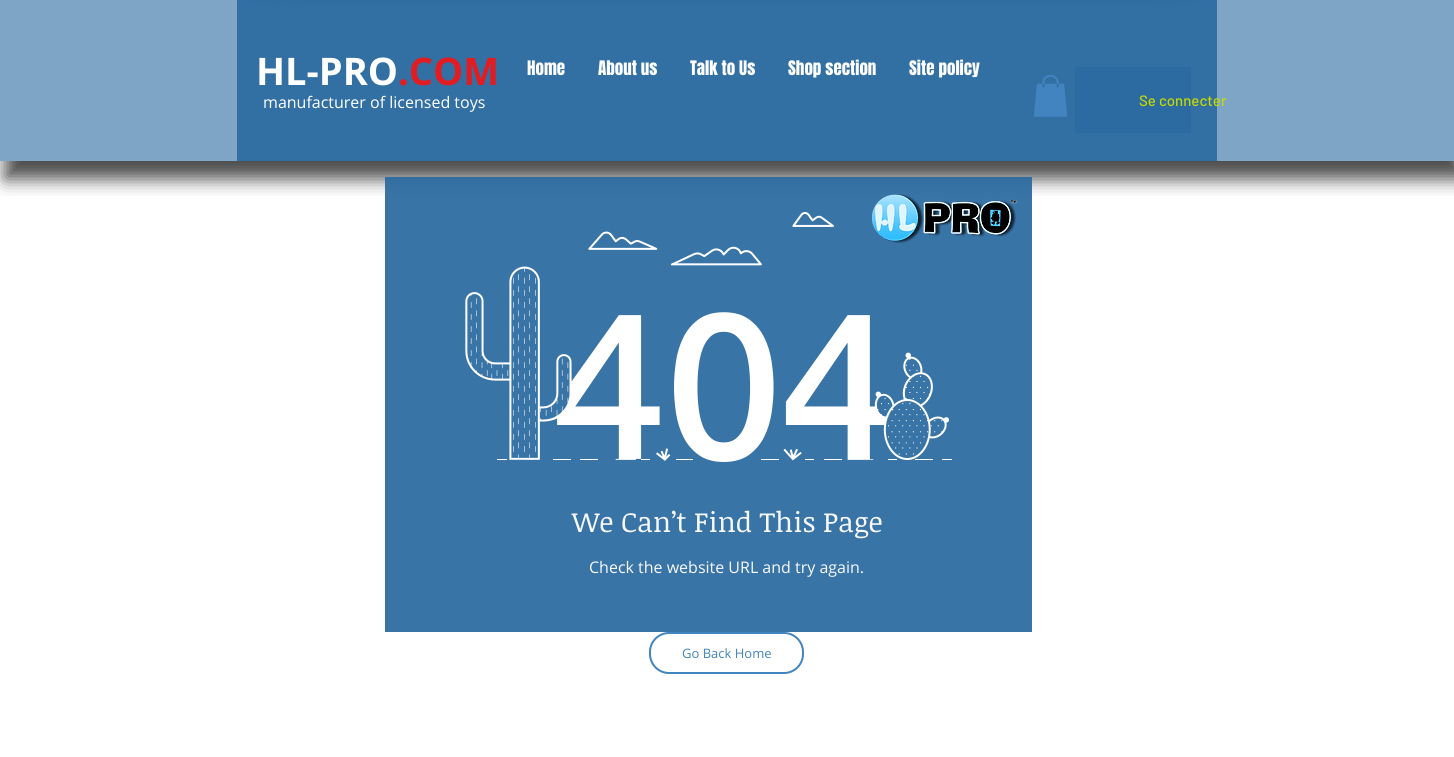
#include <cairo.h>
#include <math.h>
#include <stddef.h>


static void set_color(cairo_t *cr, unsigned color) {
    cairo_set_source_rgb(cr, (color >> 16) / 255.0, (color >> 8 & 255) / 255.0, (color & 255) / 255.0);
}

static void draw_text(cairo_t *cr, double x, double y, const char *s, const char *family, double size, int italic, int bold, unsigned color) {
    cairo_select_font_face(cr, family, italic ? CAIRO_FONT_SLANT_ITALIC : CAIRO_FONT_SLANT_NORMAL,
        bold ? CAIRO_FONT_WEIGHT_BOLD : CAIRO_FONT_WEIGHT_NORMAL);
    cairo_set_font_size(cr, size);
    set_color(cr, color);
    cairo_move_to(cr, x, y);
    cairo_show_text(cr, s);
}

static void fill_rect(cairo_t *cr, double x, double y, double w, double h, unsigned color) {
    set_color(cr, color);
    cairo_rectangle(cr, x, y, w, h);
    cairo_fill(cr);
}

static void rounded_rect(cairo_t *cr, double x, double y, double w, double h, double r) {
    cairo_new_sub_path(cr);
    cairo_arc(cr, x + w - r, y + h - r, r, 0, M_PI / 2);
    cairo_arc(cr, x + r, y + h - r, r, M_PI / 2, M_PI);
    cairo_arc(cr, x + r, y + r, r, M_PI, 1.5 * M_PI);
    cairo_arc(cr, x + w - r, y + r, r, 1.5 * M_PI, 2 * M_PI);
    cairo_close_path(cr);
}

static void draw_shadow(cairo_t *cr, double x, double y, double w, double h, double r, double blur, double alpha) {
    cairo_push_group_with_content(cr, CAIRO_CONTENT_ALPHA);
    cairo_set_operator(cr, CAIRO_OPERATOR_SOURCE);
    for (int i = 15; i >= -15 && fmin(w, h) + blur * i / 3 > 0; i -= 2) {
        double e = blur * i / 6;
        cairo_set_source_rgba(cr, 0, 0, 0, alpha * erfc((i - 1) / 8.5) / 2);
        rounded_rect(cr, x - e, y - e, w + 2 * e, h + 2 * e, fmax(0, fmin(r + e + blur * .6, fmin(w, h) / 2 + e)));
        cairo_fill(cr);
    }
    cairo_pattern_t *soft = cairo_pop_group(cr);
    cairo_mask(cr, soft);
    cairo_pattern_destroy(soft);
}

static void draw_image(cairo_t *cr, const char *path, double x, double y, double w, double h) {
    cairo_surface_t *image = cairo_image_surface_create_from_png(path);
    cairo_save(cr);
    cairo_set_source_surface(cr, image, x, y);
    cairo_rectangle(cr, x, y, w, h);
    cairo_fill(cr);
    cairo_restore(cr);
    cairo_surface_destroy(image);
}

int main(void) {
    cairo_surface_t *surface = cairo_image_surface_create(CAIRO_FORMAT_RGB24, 1454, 757);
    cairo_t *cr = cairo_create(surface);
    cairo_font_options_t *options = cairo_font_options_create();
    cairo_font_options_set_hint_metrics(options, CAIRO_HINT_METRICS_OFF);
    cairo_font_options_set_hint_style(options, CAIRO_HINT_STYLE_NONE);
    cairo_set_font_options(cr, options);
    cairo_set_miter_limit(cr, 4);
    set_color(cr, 0xFFFFFF);
    cairo_paint(cr);
    fill_rect(cr, 0, 0, 1454, 161, 0x7EA5C6);
    fill_rect(cr, 237, 0, 980, 161, 0x3270A4);
    draw_image(cr, "assets/img1.png", 240, 0, 97, 11);
    draw_image(cr, "assets/img2.png", 337, 0, 780, 11);
    draw_image(cr, "assets/img3.png", 1117, 0, 97, 11);
    cairo_save(cr);
    cairo_rectangle(cr, 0, 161, 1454, 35);
    cairo_clip(cr);
    set_color(cr, 0x000000);
    draw_shadow(cr, 5, 14, 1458, 165, 0, 9, 0.7);
    cairo_restore(cr);
    draw_text(cr, 256, 85, "HL-PRO", "Open Sans", 38, 0, 1, 0xFFFFFF);
    draw_text(cr, 398, 85, ".COM", "Open Sans", 38, 0, 1, 0xE21C21);
    draw_text(cr, 527, 75, "Home", "Anton", 17, 0, 0, 0xFFFFFF);
    draw_text(cr, 598, 75, "About us", "Anton", 17, 0, 0, 0xFFFFFF);
    draw_text(cr, 690, 75, "Talk to Us", "Anton", 17, 0, 0, 0xFFFFFF);
    draw_text(cr, 788, 75, "Shop section", "Anton", 17, 0, 0, 0xFFFFFF);
    draw_text(cr, 909, 75, "Site policy", "Anton", 17, 0, 0, 0xFFFFFF);
    draw_text(cr, 263, 108, "manufacturer of licensed toys", "Open Sans", 16, 0, 0, 0xFFFFFF);
    draw_image(cr, "assets/img4.png", 1034, 75, 33, 42);
    fill_rect(cr, 1075, 67, 116, 66, 0x2B6BA1);
    draw_text(cr, 1139, 106, "Se connecter", "Barlow Medium", 15, 0, 0, 0xC6D800);
    cairo_set_source_rgba(cr, 0.169, 0.42, 0.631, 0.93);
    cairo_rectangle(cr, 385, 177, 647, 455);
    cairo_fill(cr);
    draw_image(cr, "assets/img6.png", 465, 212, 487, 250);
    draw_image(cr, "assets/img5.png", 872, 194, 145, 50);
    draw_text(cr, 572, 532, "We Can’t Find This Page", "Noticia Text", 28, 0, 0, 0xF8F8F8);
    draw_text(cr, 589, 573, "Check the website URL and try again.", "Open Sans", 16, 0, 0, 0xF8F8F8);
    rounded_rect(cr, 650, 633, 153, 40, 19);
    set_color(cr, 0x4284BF);
    cairo_stroke(cr);
    draw_text(cr, 682, 658, "Go Back Home", "Open Sans", 13, 0, 0, 0x4284BF);
    cairo_surface_write_to_png(surface, "output.png");
    cairo_font_options_destroy(options);
    cairo_destroy(cr);
    cairo_surface_destroy(surface);
    return 0;
}
